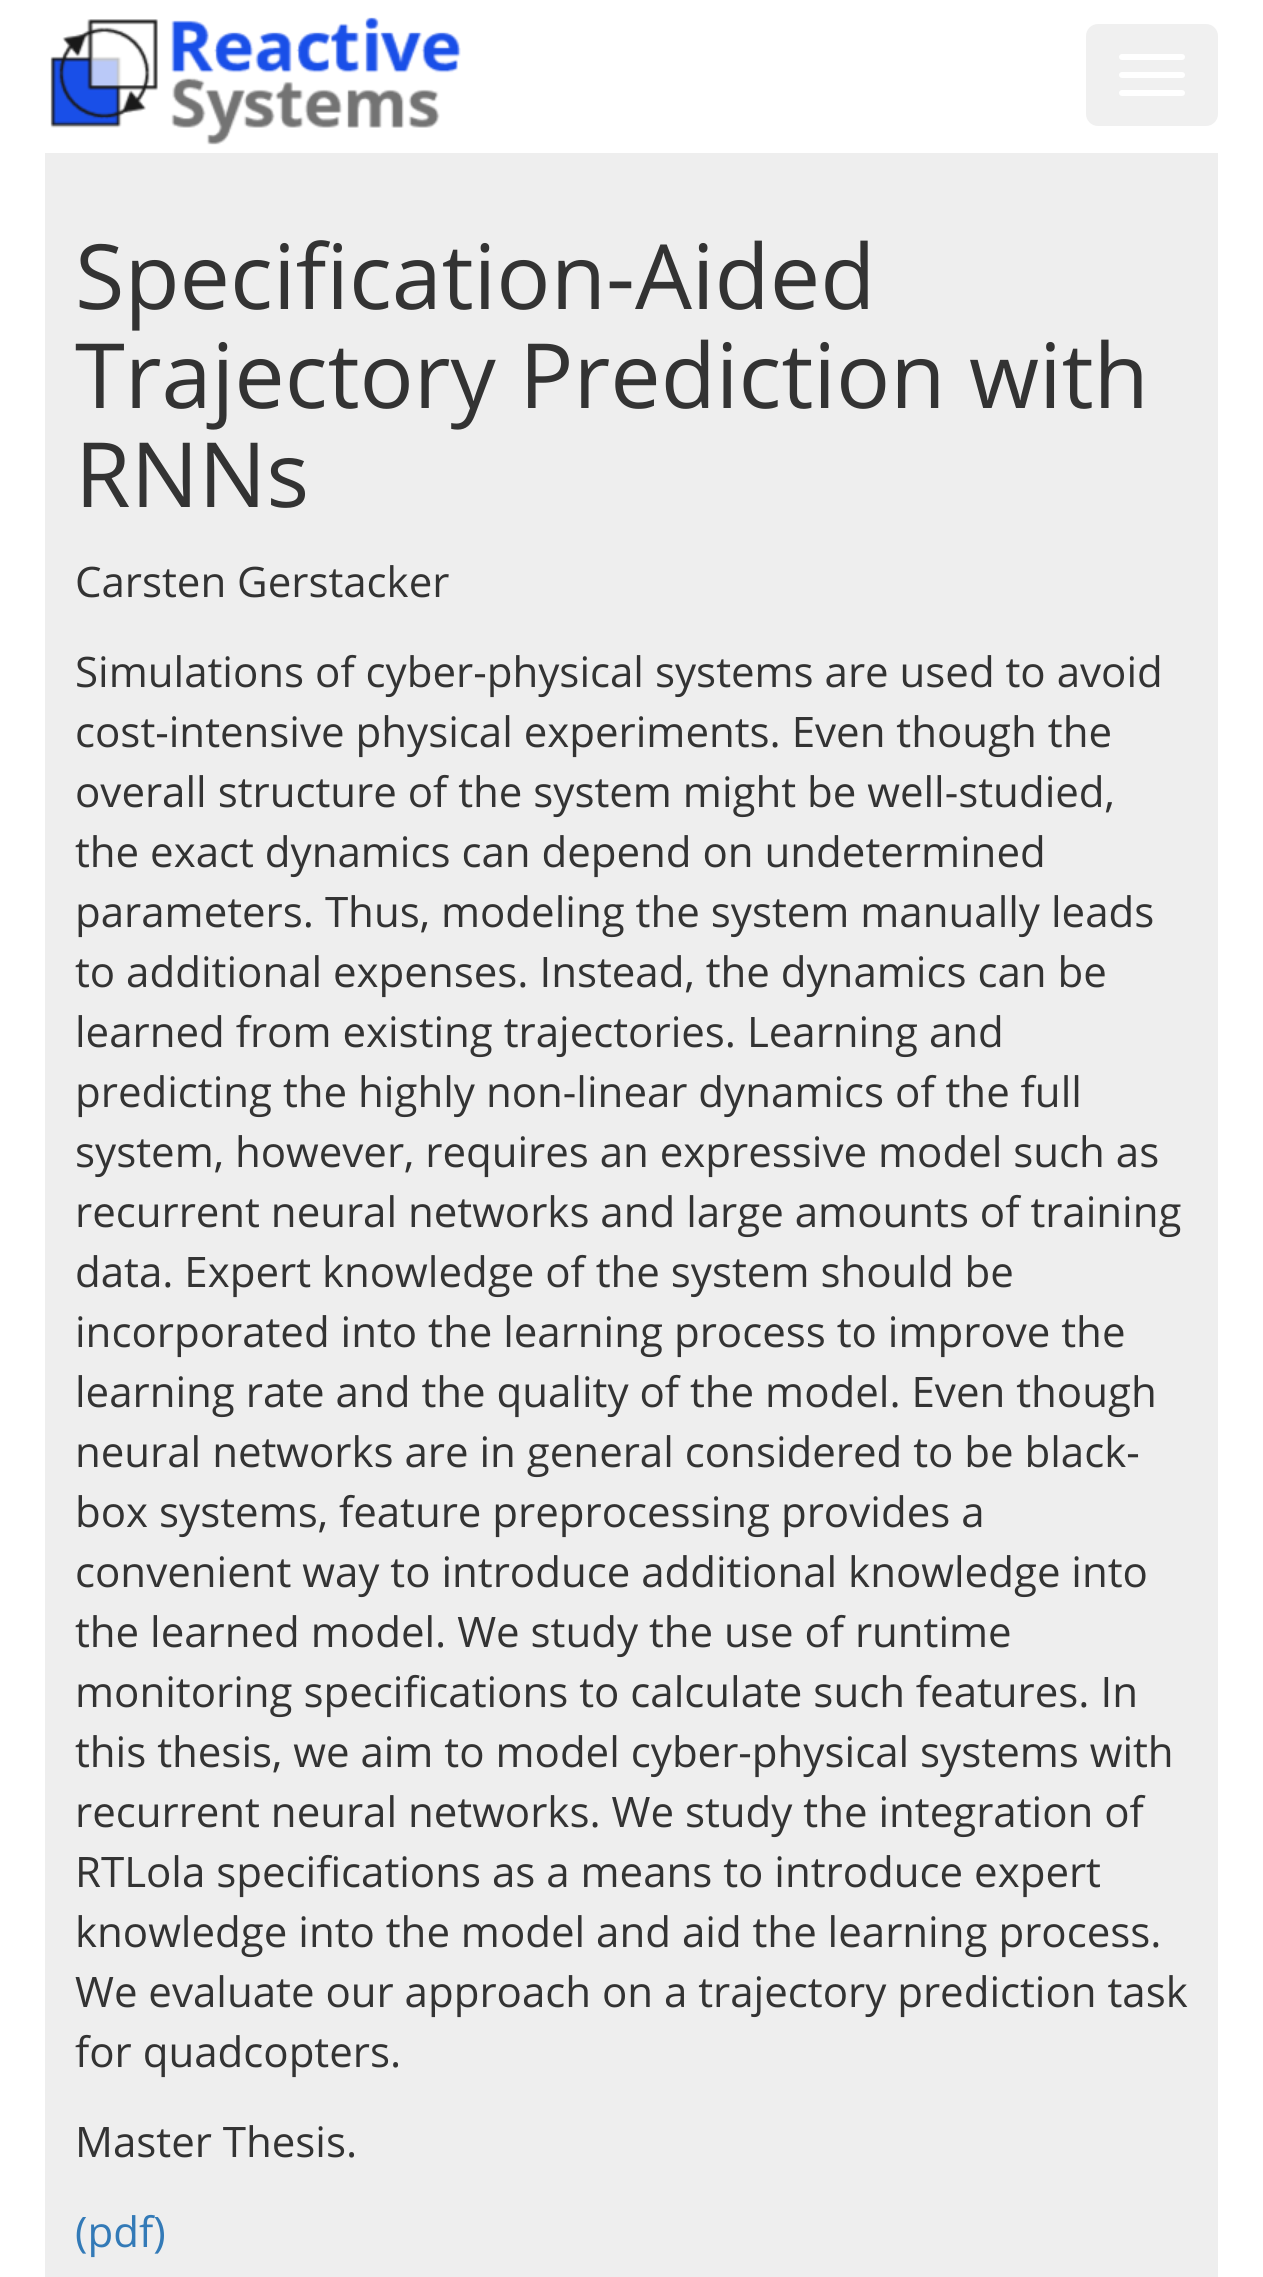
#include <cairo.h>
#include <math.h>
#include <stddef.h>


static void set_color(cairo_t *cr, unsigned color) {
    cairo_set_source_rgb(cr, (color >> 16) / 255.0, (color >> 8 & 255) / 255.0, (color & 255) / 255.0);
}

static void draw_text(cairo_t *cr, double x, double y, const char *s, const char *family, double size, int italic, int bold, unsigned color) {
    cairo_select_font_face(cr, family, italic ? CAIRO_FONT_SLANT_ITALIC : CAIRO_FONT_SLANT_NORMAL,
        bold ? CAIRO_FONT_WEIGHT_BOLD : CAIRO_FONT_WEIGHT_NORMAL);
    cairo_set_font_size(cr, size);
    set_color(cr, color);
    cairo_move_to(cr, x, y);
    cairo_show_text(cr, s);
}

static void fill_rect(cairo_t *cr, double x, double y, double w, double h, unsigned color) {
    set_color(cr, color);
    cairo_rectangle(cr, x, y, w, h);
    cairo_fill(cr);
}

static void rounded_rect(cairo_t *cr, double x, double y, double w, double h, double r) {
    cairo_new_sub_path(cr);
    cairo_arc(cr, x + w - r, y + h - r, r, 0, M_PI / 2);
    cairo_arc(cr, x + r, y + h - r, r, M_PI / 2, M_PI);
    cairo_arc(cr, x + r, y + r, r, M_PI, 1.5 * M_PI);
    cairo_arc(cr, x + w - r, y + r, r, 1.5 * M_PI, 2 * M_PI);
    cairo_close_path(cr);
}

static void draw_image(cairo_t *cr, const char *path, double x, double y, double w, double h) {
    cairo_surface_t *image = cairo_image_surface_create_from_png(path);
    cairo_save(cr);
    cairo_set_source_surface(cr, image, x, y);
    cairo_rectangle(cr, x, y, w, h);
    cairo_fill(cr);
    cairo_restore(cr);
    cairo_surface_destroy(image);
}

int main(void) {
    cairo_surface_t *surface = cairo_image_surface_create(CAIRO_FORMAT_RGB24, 1263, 2277);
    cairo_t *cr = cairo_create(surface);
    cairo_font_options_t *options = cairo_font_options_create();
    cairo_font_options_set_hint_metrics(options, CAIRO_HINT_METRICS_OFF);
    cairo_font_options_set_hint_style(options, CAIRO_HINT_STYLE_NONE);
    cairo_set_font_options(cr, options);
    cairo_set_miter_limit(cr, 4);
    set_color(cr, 0xFFFFFF);
    cairo_paint(cr);
    draw_image(cr, "assets/img1.png", 50, 17, 411, 128);
    set_color(cr, 0xF0F0F0);
    rounded_rect(cr, 1086, 24, 132, 102, 12);
    cairo_fill(cr);
    set_color(cr, 0xFFFFFF);
    rounded_rect(cr, 1119, 54, 66, 6, 3);
    cairo_fill(cr);
    rounded_rect(cr, 1119, 72, 66, 6, 3);
    cairo_fill(cr);
    rounded_rect(cr, 1119, 90, 66, 6, 3);
    cairo_fill(cr);
    fill_rect(cr, 45, 153, 1173, 2124, 0xEEEEEE);
    draw_text(cr, 75, 309, "Specification-Aided", "Open Sans", 90, 0, 0, 0x333333);
    draw_text(cr, 75, 408, "Trajectory Prediction with", "Open Sans", 90, 0, 0, 0x333333);
    draw_text(cr, 75, 507, "RNNs", "Open Sans", 90, 0, 0, 0x333333);
    draw_text(cr, 75, 597, "Carsten Gerstacker", "Open Sans", 42, 0, 0, 0x333333);
    draw_text(cr, 75, 687, "Simulations of cyber-physical systems are used to avoid", "Open Sans", 42, 0, 0, 0x333333);
    draw_text(cr, 75, 747, "cost-intensive physical experiments. Even though the", "Open Sans", 42, 0, 0, 0x333333);
    draw_text(cr, 75, 807, "overall structure of the system might be well-studied,", "Open Sans", 42, 0, 0, 0x333333);
    draw_text(cr, 75, 867, "the exact dynamics can depend on undetermined", "Open Sans", 42, 0, 0, 0x333333);
    draw_text(cr, 75, 927, "parameters. Thus, modeling the system manually leads", "Open Sans", 42, 0, 0, 0x333333);
    draw_text(cr, 75, 987, "to additional expenses. Instead, the dynamics can be", "Open Sans", 42, 0, 0, 0x333333);
    draw_text(cr, 75, 1047, "learned from existing trajectories. Learning and", "Open Sans", 42, 0, 0, 0x333333);
    draw_text(cr, 75, 1107, "predicting the highly non-linear dynamics of the full", "Open Sans", 42, 0, 0, 0x333333);
    draw_text(cr, 75, 1167, "system, however, requires an expressive model such as", "Open Sans", 42, 0, 0, 0x333333);
    draw_text(cr, 75, 1227, "recurrent neural networks and large amounts of training", "Open Sans", 42, 0, 0, 0x333333);
    draw_text(cr, 75, 1287, "data. Expert knowledge of the system should be", "Open Sans", 42, 0, 0, 0x333333);
    draw_text(cr, 75, 1347, "incorporated into the learning process to improve the", "Open Sans", 42, 0, 0, 0x333333);
    draw_text(cr, 75, 1407, "learning rate and the quality of the model. Even though", "Open Sans", 42, 0, 0, 0x333333);
    draw_text(cr, 75, 1467, "neural networks are in general considered to be black-", "Open Sans", 42, 0, 0, 0x333333);
    draw_text(cr, 75, 1527, "box systems, feature preprocessing provides a", "Open Sans", 42, 0, 0, 0x333333);
    draw_text(cr, 75, 1587, "convenient way to introduce additional knowledge into", "Open Sans", 42, 0, 0, 0x333333);
    draw_text(cr, 75, 1647, "the learned model. We study the use of runtime", "Open Sans", 42, 0, 0, 0x333333);
    draw_text(cr, 75, 1707, "monitoring specifications to calculate such features. In", "Open Sans", 42, 0, 0, 0x333333);
    draw_text(cr, 75, 1767, "this thesis, we aim to model cyber-physical systems with", "Open Sans", 42, 0, 0, 0x333333);
    draw_text(cr, 75, 1827, "recurrent neural networks. We study the integration of", "Open Sans", 42, 0, 0, 0x333333);
    draw_text(cr, 75, 1887, "RTLola specifications as a means to introduce expert", "Open Sans", 42, 0, 0, 0x333333);
    draw_text(cr, 75, 1947, "knowledge into the model and aid the learning process.", "Open Sans", 42, 0, 0, 0x333333);
    draw_text(cr, 75, 2007, "We evaluate our approach on a trajectory prediction task", "Open Sans", 42, 0, 0, 0x333333);
    draw_text(cr, 75, 2067, "for quadcopters.", "Open Sans", 42, 0, 0, 0x333333);
    draw_text(cr, 75, 2157, "Master Thesis.", "Open Sans", 42, 0, 0, 0x333333);
    draw_text(cr, 75, 2247, "(pdf)", "Open Sans", 42, 0, 0, 0x337AB7);
    cairo_surface_write_to_png(surface, "output.png");
    cairo_font_options_destroy(options);
    cairo_destroy(cr);
    cairo_surface_destroy(surface);
    return 0;
}
